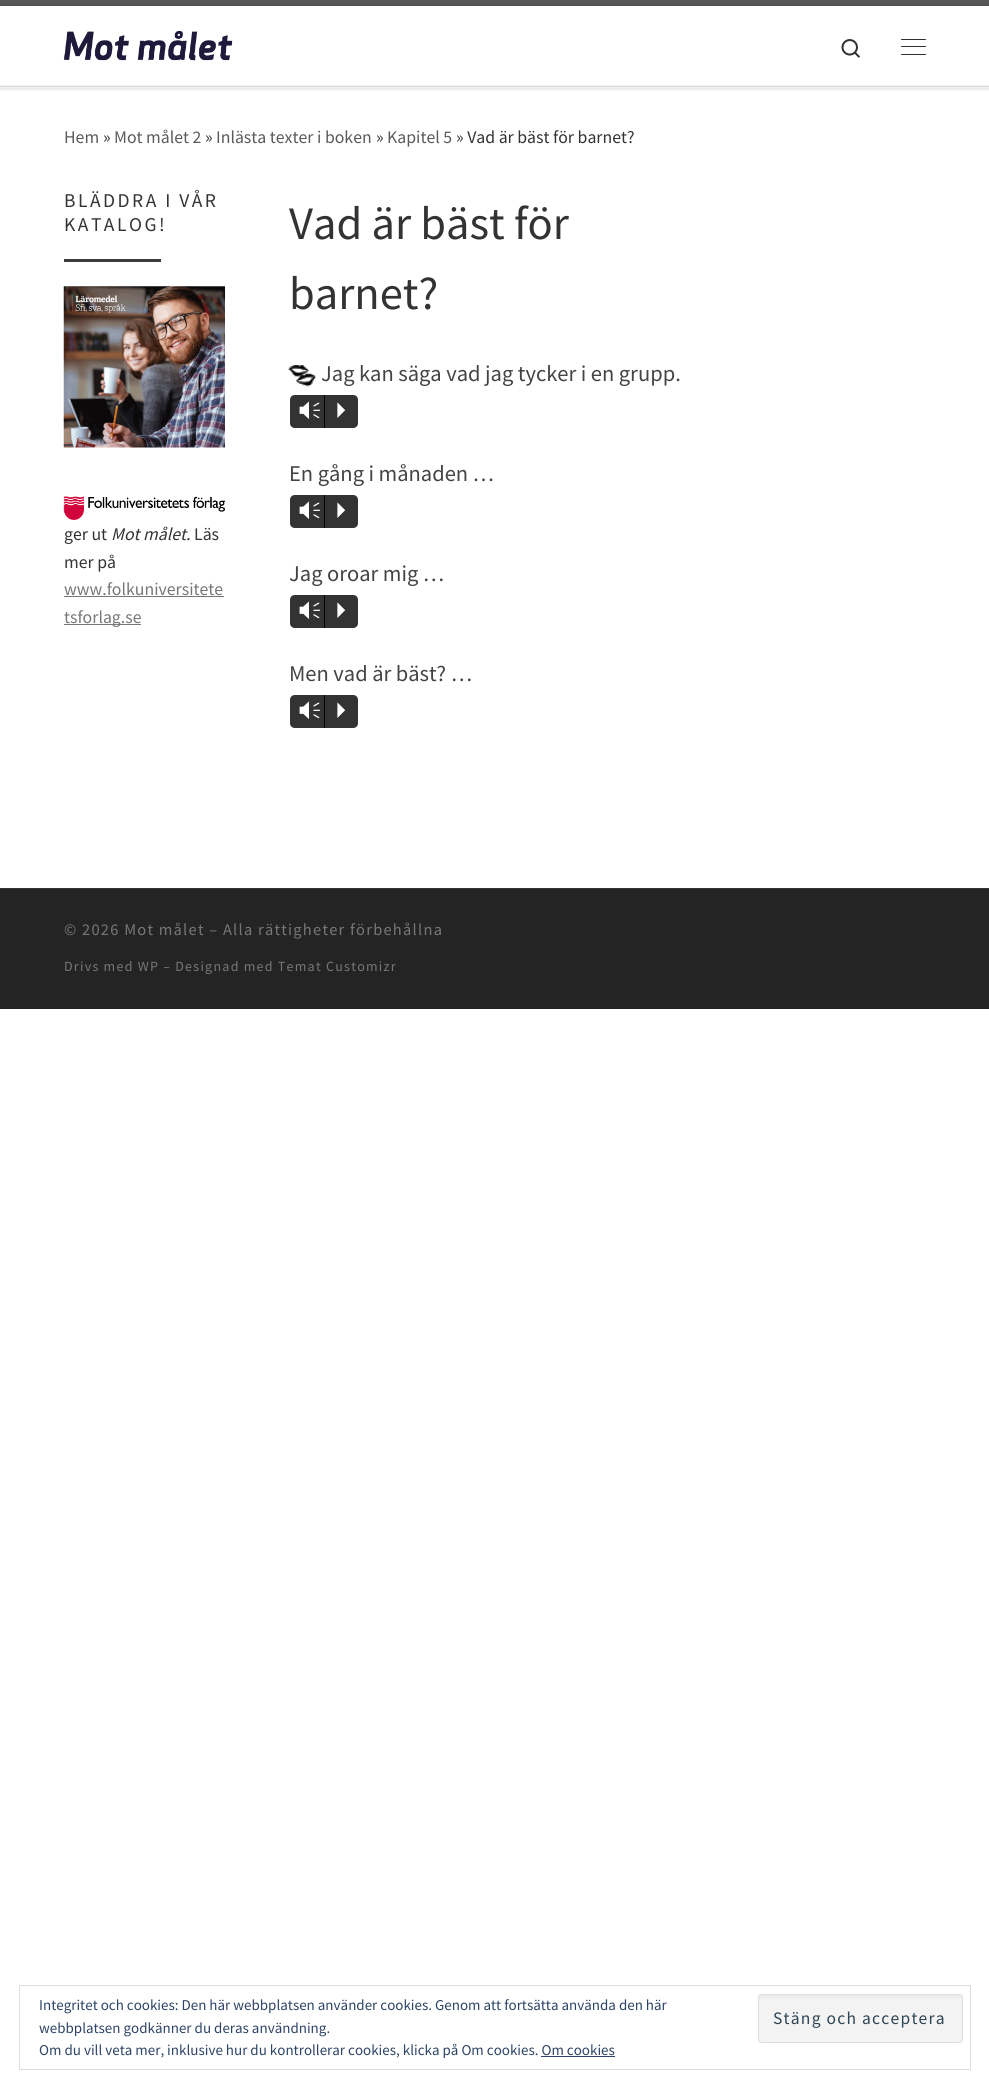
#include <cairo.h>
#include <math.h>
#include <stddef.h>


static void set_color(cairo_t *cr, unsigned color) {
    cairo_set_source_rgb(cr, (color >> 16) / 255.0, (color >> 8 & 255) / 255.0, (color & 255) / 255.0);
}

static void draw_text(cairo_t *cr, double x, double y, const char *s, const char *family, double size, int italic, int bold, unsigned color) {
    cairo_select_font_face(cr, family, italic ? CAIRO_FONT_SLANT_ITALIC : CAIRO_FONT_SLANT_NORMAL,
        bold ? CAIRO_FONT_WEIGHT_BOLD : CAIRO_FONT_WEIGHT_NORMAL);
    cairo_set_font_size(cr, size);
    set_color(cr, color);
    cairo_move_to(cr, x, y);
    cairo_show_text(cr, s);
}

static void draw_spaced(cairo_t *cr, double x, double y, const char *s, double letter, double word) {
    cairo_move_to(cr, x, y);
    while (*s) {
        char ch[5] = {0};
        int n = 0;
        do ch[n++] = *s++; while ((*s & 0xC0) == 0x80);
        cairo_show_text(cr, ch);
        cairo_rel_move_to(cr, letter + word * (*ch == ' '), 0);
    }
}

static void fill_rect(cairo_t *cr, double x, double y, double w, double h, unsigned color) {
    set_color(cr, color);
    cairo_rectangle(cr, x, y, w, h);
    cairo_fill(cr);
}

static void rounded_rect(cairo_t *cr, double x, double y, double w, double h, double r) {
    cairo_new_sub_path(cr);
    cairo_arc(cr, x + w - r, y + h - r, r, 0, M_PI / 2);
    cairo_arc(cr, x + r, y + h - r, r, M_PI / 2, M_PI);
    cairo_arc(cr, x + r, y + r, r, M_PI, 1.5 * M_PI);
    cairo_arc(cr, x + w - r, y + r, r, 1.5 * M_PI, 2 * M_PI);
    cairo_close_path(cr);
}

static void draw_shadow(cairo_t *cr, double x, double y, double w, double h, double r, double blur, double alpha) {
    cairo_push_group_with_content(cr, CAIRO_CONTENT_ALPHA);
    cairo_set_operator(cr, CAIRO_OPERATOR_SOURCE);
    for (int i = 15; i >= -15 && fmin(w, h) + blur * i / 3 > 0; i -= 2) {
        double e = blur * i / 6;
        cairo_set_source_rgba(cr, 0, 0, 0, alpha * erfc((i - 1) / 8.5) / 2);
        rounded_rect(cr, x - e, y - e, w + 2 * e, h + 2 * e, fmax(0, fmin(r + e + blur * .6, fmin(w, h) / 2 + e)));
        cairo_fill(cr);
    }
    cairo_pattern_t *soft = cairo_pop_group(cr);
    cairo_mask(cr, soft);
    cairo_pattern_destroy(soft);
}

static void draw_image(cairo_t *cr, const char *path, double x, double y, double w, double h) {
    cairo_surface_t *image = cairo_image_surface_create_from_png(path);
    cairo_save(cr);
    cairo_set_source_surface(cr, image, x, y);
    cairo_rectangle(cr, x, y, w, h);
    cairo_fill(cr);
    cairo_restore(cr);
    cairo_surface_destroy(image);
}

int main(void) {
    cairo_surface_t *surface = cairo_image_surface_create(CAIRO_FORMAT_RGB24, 989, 2088);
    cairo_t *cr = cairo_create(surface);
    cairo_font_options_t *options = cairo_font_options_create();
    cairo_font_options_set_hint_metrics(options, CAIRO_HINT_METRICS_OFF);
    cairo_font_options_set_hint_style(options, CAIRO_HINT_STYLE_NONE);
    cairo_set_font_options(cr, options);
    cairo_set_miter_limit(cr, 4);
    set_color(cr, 0xFFFFFF);
    cairo_paint(cr);
    set_color(cr, 0x666666);
    draw_shadow(cr, 0, 3, 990, 87, 0, 1, 0.08);
    fill_rect(cr, 0, 87, 989, 1, 0xFFFFFF);
    fill_rect(cr, 0, 0, 989, 6, 0x5A5A5A);
    fill_rect(cr, 0, 86, 989, 1, 0xECECEC);
    cairo_set_source_rgba(cr, 1, 1, 1, 0.15);
    cairo_rectangle(cr, 0, 86, 989, 1);
    cairo_fill(cr);
    set_color(cr, 0x000000);
    draw_shadow(cr, 0, 6, 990, 80, 0, 3, 0.2);
    fill_rect(cr, 0, 6, 989, 79, 0xFFFFFF);
    draw_image(cr, "assets/img1.png", 63, 30, 170, 31);
    draw_image(cr, "assets/img2.png", 841, 39, 20, 19);
    set_color(cr, 0x313131);
    rounded_rect(cr, 901, 39, 25, 1, 0.5);
    cairo_fill(cr);
    rounded_rect(cr, 901, 46, 25, 1, 0.5);
    cairo_fill(cr);
    rounded_rect(cr, 901, 54, 25, 1, 0.5);
    cairo_fill(cr);
    fill_rect(cr, 0, 85, 989, 1, 0xF0F0F0);
    draw_text(cr, 64, 143, "Hem", "Source Sans Pro", 17.75, 0, 0, 0x5A5A5A);
    draw_text(cr, 103, 143, "»", "Source Sans Pro", 17.75, 0, 0, 0x333333);
    draw_text(cr, 114, 143, "Mot målet 2", "Source Sans Pro", 17.75, 0, 0, 0x5A5A5A);
    draw_text(cr, 205, 143, "»", "Source Sans Pro", 17.75, 0, 0, 0x333333);
    draw_text(cr, 216, 143, "Inlästa texter i boken", "Source Sans Pro", 17.75, 0, 0, 0x5A5A5A);
    draw_text(cr, 376, 143, "»", "Source Sans Pro", 17.75, 0, 0, 0x333333);
    draw_text(cr, 387, 143, "Kapitel 5", "Source Sans Pro", 17.75, 0, 0, 0x5A5A5A);
    draw_text(cr, 456, 143, "» Vad är bäst för barnet?", "Source Sans Pro", 17.75, 0, 0, 0x333333);
    cairo_set_font_size(cr, 19.5);
    draw_spaced(cr, 64, 207, "BLÄDDRA I VÅR", 2.5, 0);
    draw_spaced(cr, 64, 231, "KATALOG!", 2.5, 0);
    fill_rect(cr, 64, 259, 97, 3, 0x3B3B3B);
    draw_image(cr, "assets/img3.png", 63, 286, 162, 162);
    draw_image(cr, "assets/img4.png", 63, 496, 162, 24);
    draw_text(cr, 64, 540, "ger ut", "Source Sans Pro", 17.75, 0, 0, 0x333333);
    draw_text(cr, 111, 540, "Mot målet.", "Source Sans Pro", 17.75, 1, 0, 0x333333);
    draw_text(cr, 194, 540, "Läs", "Source Sans Pro", 17.75, 0, 0, 0x333333);
    draw_text(cr, 64, 568, "mer på", "Source Sans Pro", 17.75, 0, 0, 0x333333);
    draw_text(cr, 64, 595, "www.folkuniversitete", "Source Sans Pro", 17.75, 0, 0, 0x777777);
    fill_rect(cr, 64, 596, 160, 1, 0x777777);
    fill_rect(cr, 64, 624, 77, 1, 0x777777);
    draw_text(cr, 64, 623, "tsforlag.se", "Source Sans Pro", 17.75, 0, 0, 0x777777);
    draw_text(cr, 289, 239, "Vad är bäst för", "Source Sans Pro", 46.5, 0, 0, 0x333333);
    draw_text(cr, 289, 309, "barnet?", "Source Sans Pro", 46.5, 0, 0, 0x333333);
    draw_image(cr, "assets/img5.png", 288, 365, 29, 22);
    draw_text(cr, 321, 381, "Jag kan säga vad jag tycker i en grupp.", "Source Sans Pro", 22.5, 0, 0, 0x444444);
    set_color(cr, 0x333333);
    cairo_new_path(cr);
    cairo_move_to(cr, 295, 395);
    cairo_line_to(cr, 324, 395);
    cairo_line_to(cr, 324, 428);
    cairo_line_to(cr, 295, 428);
    cairo_curve_to(cr, 292, 428, 290, 426, 290, 423);
    cairo_line_to(cr, 290, 400);
    cairo_curve_to(cr, 290, 397, 292, 395, 295, 395);
    cairo_close_path(cr);
    cairo_fill(cr);
    draw_text(cr, 298, 418, "Vm", "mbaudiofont", 25, 0, 0, 0xFFFFFF);
    set_color(cr, 0x333333);
    cairo_new_path(cr);
    cairo_move_to(cr, 324, 395);
    cairo_line_to(cr, 353, 395);
    cairo_curve_to(cr, 356, 395, 358, 397, 358, 400);
    cairo_line_to(cr, 358, 423);
    cairo_curve_to(cr, 358, 426, 356, 428, 353, 428);
    cairo_line_to(cr, 324, 428);
    cairo_close_path(cr);
    cairo_fill(cr);
    fill_rect(cr, 324, 395, 1, 33, 0x000000);
    draw_text(cr, 328, 418, "P", "mbaudiofont", 25, 0, 0, 0xFFFFFF);
    draw_text(cr, 289, 481, "En gång i månaden …", "Source Sans Pro", 22.5, 0, 0, 0x444444);
    set_color(cr, 0x333333);
    cairo_new_path(cr);
    cairo_move_to(cr, 295, 495);
    cairo_line_to(cr, 324, 495);
    cairo_line_to(cr, 324, 528);
    cairo_line_to(cr, 295, 528);
    cairo_curve_to(cr, 292, 528, 290, 526, 290, 523);
    cairo_line_to(cr, 290, 500);
    cairo_curve_to(cr, 290, 497, 292, 495, 295, 495);
    cairo_close_path(cr);
    cairo_fill(cr);
    draw_text(cr, 298, 518, "Vm", "mbaudiofont", 25, 0, 0, 0xFFFFFF);
    set_color(cr, 0x333333);
    cairo_new_path(cr);
    cairo_move_to(cr, 324, 495);
    cairo_line_to(cr, 353, 495);
    cairo_curve_to(cr, 356, 495, 358, 497, 358, 500);
    cairo_line_to(cr, 358, 523);
    cairo_curve_to(cr, 358, 526, 356, 528, 353, 528);
    cairo_line_to(cr, 324, 528);
    cairo_close_path(cr);
    cairo_fill(cr);
    fill_rect(cr, 324, 495, 1, 33, 0x000000);
    draw_text(cr, 328, 518, "P", "mbaudiofont", 25, 0, 0, 0xFFFFFF);
    draw_text(cr, 289, 581, "Jag oroar mig …", "Source Sans Pro", 22.5, 0, 0, 0x444444);
    set_color(cr, 0x333333);
    cairo_new_path(cr);
    cairo_move_to(cr, 295, 595);
    cairo_line_to(cr, 324, 595);
    cairo_line_to(cr, 324, 628);
    cairo_line_to(cr, 295, 628);
    cairo_curve_to(cr, 292, 628, 290, 626, 290, 623);
    cairo_line_to(cr, 290, 600);
    cairo_curve_to(cr, 290, 597, 292, 595, 295, 595);
    cairo_close_path(cr);
    cairo_fill(cr);
    draw_text(cr, 298, 618, "Vm", "mbaudiofont", 25, 0, 0, 0xFFFFFF);
    set_color(cr, 0x333333);
    cairo_new_path(cr);
    cairo_move_to(cr, 324, 595);
    cairo_line_to(cr, 353, 595);
    cairo_curve_to(cr, 356, 595, 358, 597, 358, 600);
    cairo_line_to(cr, 358, 623);
    cairo_curve_to(cr, 358, 626, 356, 628, 353, 628);
    cairo_line_to(cr, 324, 628);
    cairo_close_path(cr);
    cairo_fill(cr);
    fill_rect(cr, 324, 595, 1, 33, 0x000000);
    draw_text(cr, 328, 618, "P", "mbaudiofont", 25, 0, 0, 0xFFFFFF);
    draw_text(cr, 289, 681, "Men vad är bäst? …", "Source Sans Pro", 22.5, 0, 0, 0x444444);
    set_color(cr, 0x333333);
    cairo_new_path(cr);
    cairo_move_to(cr, 295, 695);
    cairo_line_to(cr, 324, 695);
    cairo_line_to(cr, 324, 728);
    cairo_line_to(cr, 295, 728);
    cairo_curve_to(cr, 292, 728, 290, 726, 290, 723);
    cairo_line_to(cr, 290, 700);
    cairo_curve_to(cr, 290, 697, 292, 695, 295, 695);
    cairo_close_path(cr);
    cairo_fill(cr);
    draw_text(cr, 298, 718, "Vm", "mbaudiofont", 25, 0, 0, 0xFFFFFF);
    set_color(cr, 0x333333);
    cairo_new_path(cr);
    cairo_move_to(cr, 324, 695);
    cairo_line_to(cr, 353, 695);
    cairo_curve_to(cr, 356, 695, 358, 697, 358, 700);
    cairo_line_to(cr, 358, 723);
    cairo_curve_to(cr, 358, 726, 356, 728, 353, 728);
    cairo_line_to(cr, 324, 728);
    cairo_close_path(cr);
    cairo_fill(cr);
    fill_rect(cr, 324, 695, 1, 33, 0x000000);
    draw_text(cr, 328, 718, "P", "mbaudiofont", 25, 0, 0, 0xFFFFFF);
    fill_rect(cr, 0, 888, 989, 1, 0x313131);
    fill_rect(cr, 0, 889, 989, 120, 0x242424);
    cairo_select_font_face(cr, "Source Sans Pro", CAIRO_FONT_SLANT_NORMAL, CAIRO_FONT_WEIGHT_NORMAL);
    cairo_set_font_size(cr, 16.4);
    set_color(cr, 0x777777);
    draw_spaced(cr, 64, 935, "© 2026 Mot målet – Alla rättigheter förbehållna", 1.25, 0);
    cairo_set_font_size(cr, 14);
    draw_spaced(cr, 64, 971, "Drivs med WP – Designad med Temat Customizr", 1.25, 0);
    cairo_rectangle(cr, 19.5, 1985.5, 951, 84);
    set_color(cr, 0xDEDEDE);
    cairo_set_line_width(cr, 1);
    cairo_stroke(cr);
    draw_text(cr, 39, 2010, "Integritet och cookies: Den här webbplatsen använder cookies. Genom att fortsätta använda den här", "Source Sans Pro", 15, 0, 0, 0x2E4467);
    set_color(cr, 0xF3F3F3);
    rounded_rect(cr, 758, 1994, 205, 49, 4);
    cairo_fill(cr);
    set_color(cr, 0xEDEDED);
    cairo_new_path(cr);
    cairo_move_to(cr, 761, 1998);
    cairo_line_to(cr, 959, 1998);
    cairo_line_to(cr, 961, 1999);
    cairo_line_to(cr, 961, 2000);
    cairo_curve_to(cr, 961, 1998, 961, 1995, 958, 1995);
    cairo_line_to(cr, 762, 1995);
    cairo_curve_to(cr, 759, 1995, 759, 1998, 759, 2000);
    cairo_curve_to(cr, 759, 1999, 760, 1998, 761, 1998);
    cairo_close_path(cr);
    cairo_fill(cr);
    rounded_rect(cr, 758.5, 1994.5, 204, 48, 3.5);
    set_color(cr, 0xDEDEDE);
    cairo_stroke(cr);
    cairo_set_font_size(cr, 17.5);
    set_color(cr, 0x2E4453);
    draw_spaced(cr, 773, 2024, "Stäng och acceptera", 1.25, 0);
    draw_text(cr, 39, 2033, "webbplatsen godkänner du deras användning.", "Source Sans Pro", 15, 0, 0, 0x2E4467);
    draw_text(cr, 39, 2055, "Om du vill veta mer, inklusive hur du kontrollerar cookies, klicka på Om cookies. Om cookies", "Source Sans Pro", 15, 0, 0, 0x2E4467);
    fill_rect(cr, 541, 2056, 74, 1, 0x2E4467);
    cairo_surface_write_to_png(surface, "output.png");
    cairo_font_options_destroy(options);
    cairo_destroy(cr);
    cairo_surface_destroy(surface);
    return 0;
}
